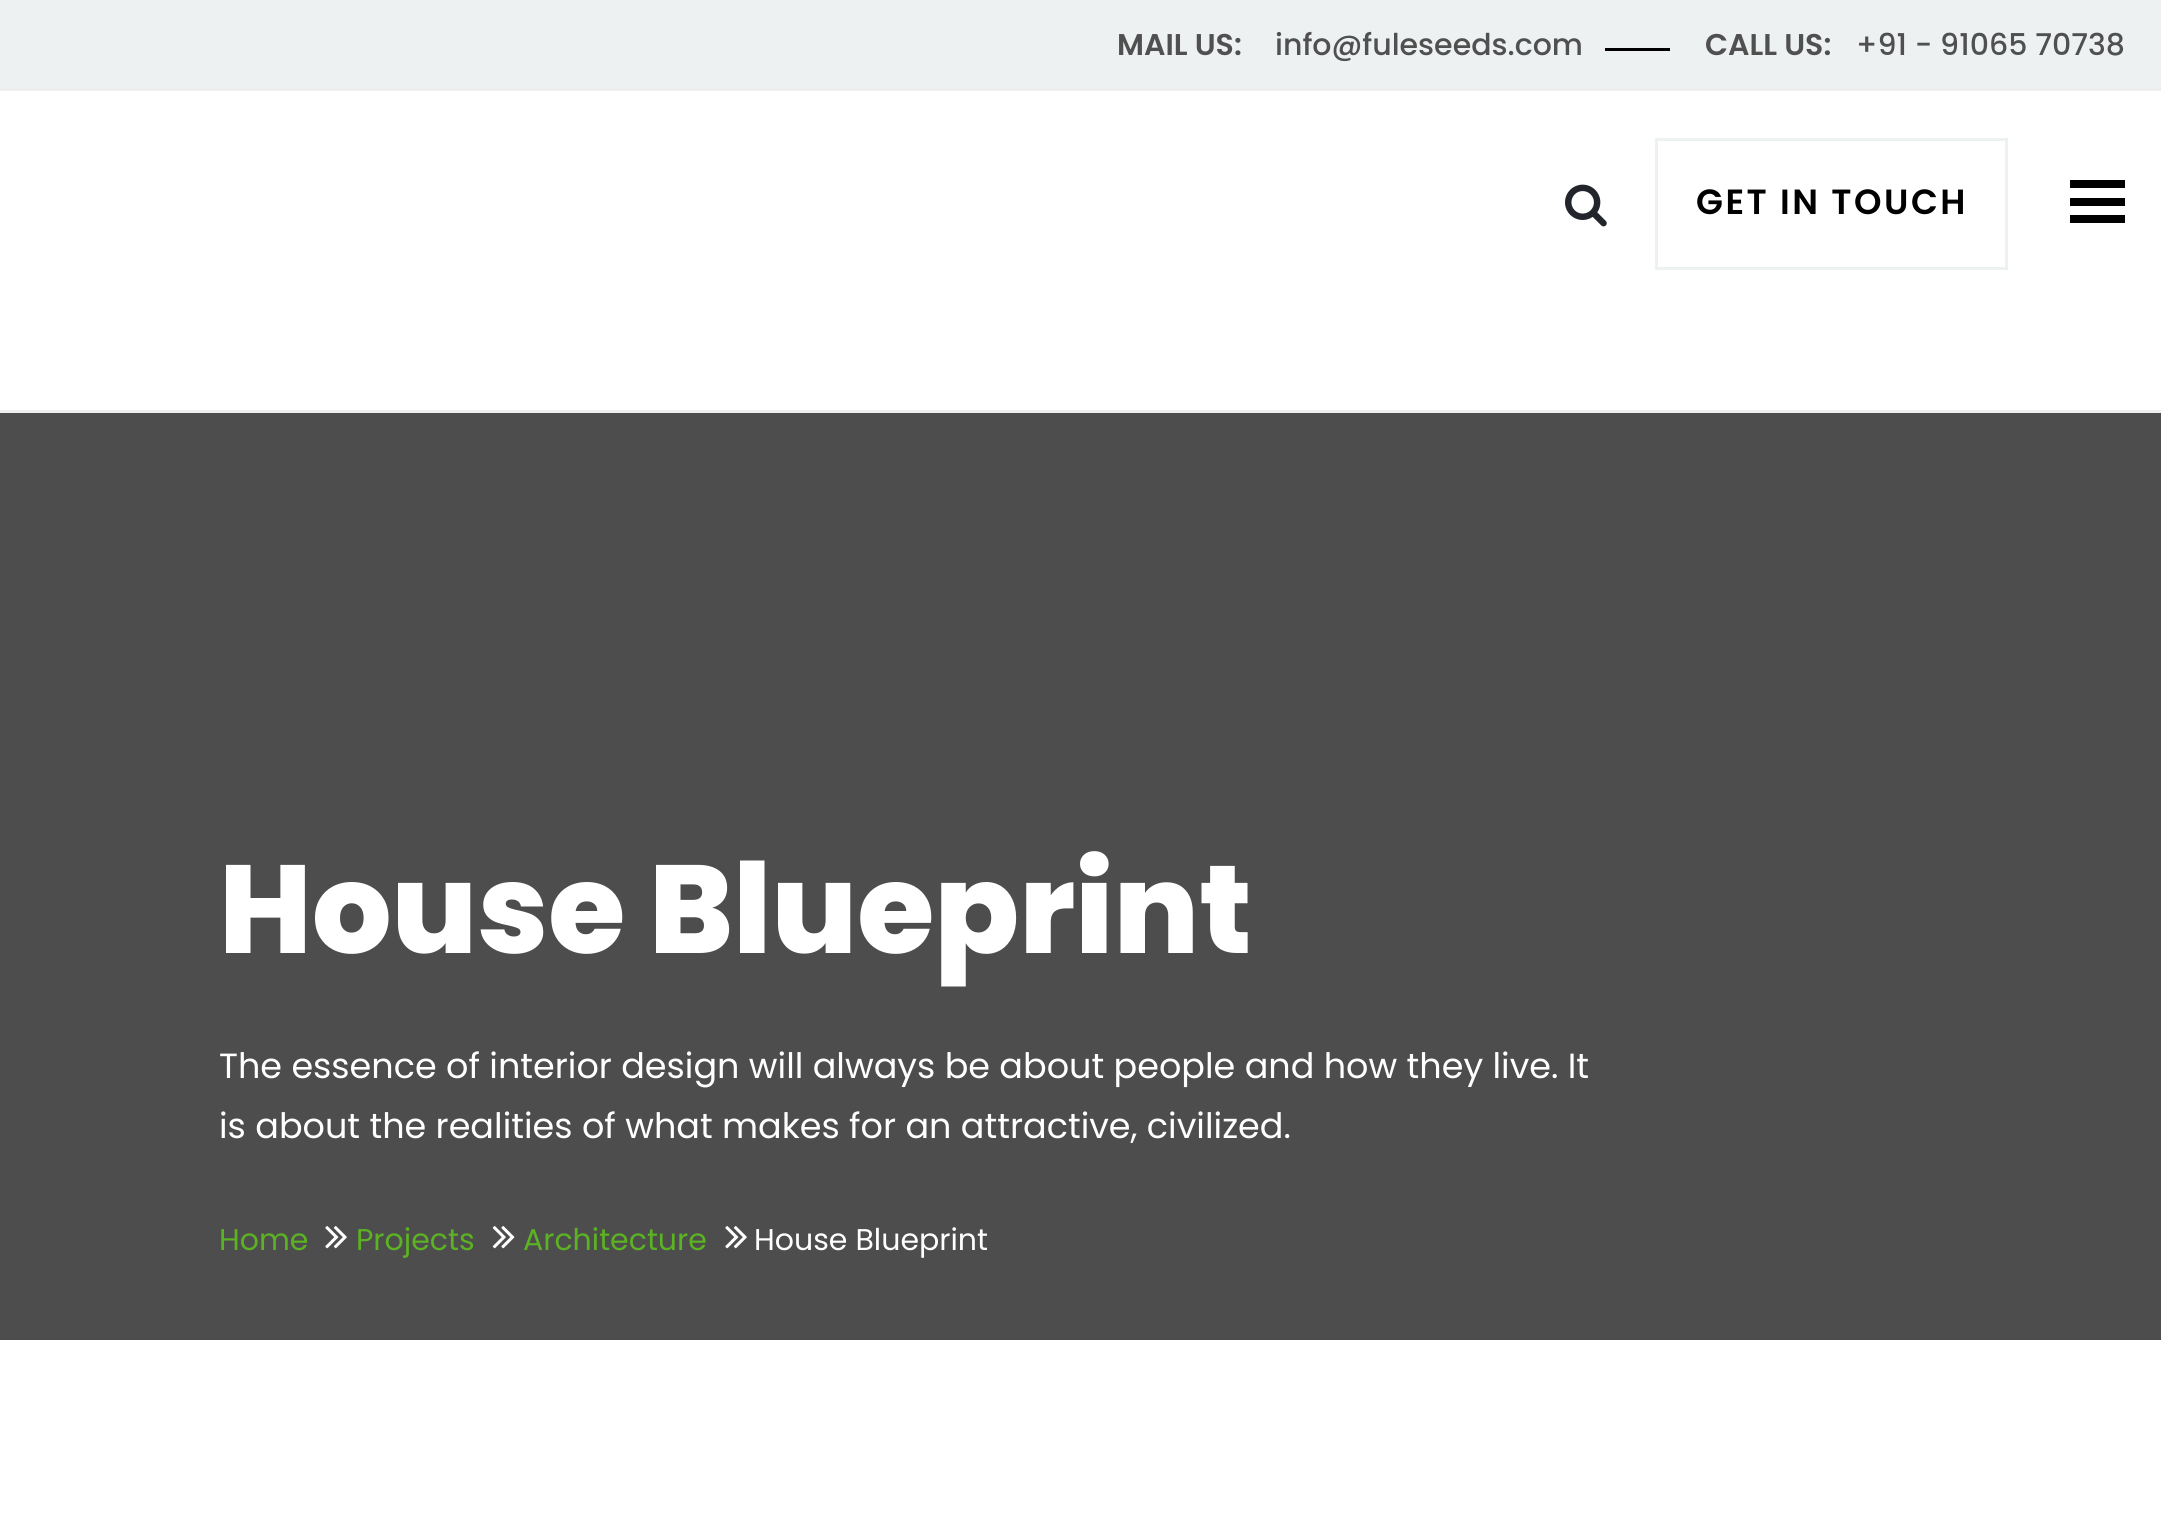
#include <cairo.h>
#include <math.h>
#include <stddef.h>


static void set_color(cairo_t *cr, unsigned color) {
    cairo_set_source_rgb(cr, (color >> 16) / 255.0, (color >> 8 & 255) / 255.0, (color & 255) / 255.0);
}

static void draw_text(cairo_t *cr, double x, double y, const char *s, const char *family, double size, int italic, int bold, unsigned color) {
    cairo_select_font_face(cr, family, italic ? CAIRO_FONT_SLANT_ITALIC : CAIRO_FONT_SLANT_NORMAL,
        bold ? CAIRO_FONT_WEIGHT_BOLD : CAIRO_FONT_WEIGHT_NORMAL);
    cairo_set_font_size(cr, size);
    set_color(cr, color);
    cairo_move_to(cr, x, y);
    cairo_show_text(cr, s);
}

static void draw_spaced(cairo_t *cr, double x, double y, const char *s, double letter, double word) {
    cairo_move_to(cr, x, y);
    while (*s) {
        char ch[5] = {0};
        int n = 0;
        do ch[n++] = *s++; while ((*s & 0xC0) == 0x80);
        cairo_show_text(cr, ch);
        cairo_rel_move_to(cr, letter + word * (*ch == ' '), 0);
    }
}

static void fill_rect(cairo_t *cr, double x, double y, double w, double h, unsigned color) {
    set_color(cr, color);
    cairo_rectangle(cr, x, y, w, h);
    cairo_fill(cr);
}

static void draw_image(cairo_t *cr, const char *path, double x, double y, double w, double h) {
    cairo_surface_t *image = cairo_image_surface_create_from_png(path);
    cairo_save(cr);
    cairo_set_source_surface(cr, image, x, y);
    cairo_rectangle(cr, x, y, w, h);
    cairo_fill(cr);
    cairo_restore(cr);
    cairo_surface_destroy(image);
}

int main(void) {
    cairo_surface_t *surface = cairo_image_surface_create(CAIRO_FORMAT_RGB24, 2161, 1536);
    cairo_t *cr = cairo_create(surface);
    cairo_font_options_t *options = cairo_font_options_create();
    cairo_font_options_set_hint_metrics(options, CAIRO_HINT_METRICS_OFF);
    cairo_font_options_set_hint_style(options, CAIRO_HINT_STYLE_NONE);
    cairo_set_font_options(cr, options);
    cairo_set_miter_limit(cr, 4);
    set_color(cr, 0xFFFFFF);
    cairo_paint(cr);
    fill_rect(cr, 0, 0, 2161, 88, 0xEEF1F2);
    fill_rect(cr, 0, 88, 2161, 3, 0xEEEEEE);
    draw_text(cr, 1117, 55, "MAIL US:", "Poppins SemiBold", 30, 0, 0, 0x505050);
    draw_text(cr, 1275, 55, "info@fuleseeds.com", "Poppins Medium", 30, 0, 0, 0x505050);
    fill_rect(cr, 1605, 48, 65, 3, 0x000000);
    draw_text(cr, 1705, 55, "CALL US:", "Poppins SemiBold", 30, 0, 0, 0x505050);
    draw_text(cr, 1856, 55, "+91 - 91065 70738", "Poppins Medium", 30, 0, 0, 0x505050);
    fill_rect(cr, 0, 410, 2161, 3, 0xEFEFEF);
    draw_image(cr, "assets/img1.png", 1565, 184, 42, 43);
    cairo_rectangle(cr, 1656.5, 139.5, 350, 129);
    set_color(cr, 0xEEF1F2);
    cairo_set_line_width(cr, 3);
    cairo_stroke(cr);
    cairo_select_font_face(cr, "Poppins SemiBold", CAIRO_FONT_SLANT_NORMAL, CAIRO_FONT_WEIGHT_NORMAL);
    cairo_set_font_size(cr, 35);
    set_color(cr, 0x000000);
    draw_spaced(cr, 1696, 214, "GET IN TOUCH", 2.5, 0);
    fill_rect(cr, 2070, 180, 55, 8, 0x000000);
    fill_rect(cr, 2070, 198, 55, 8, 0x000000);
    fill_rect(cr, 2070, 215, 55, 8, 0x000000);
    fill_rect(cr, 0, 413, 2161, 927, 0x4D4D4D);
    draw_text(cr, 219, 953, "House Blueprint", "Poppins ExtraBold", 125, 0, 0, 0xFFFFFF);
    draw_text(cr, 219, 1078, "The essence of interior design will always be about people and how they live. It", "Poppins", 35, 0, 0, 0xFFFFFF);
    draw_text(cr, 219, 1138, "is about the realities of what makes for an attractive, civilized.", "Poppins", 35, 0, 0, 0xFFFFFF);
    draw_text(cr, 219, 1250, "Home", "Poppins", 30, 0, 0, 0x5BB222);
    draw_image(cr, "assets/img2.png", 325, 1226, 22, 23);
    draw_text(cr, 356, 1250, "Projects", "Poppins", 30, 0, 0, 0x5BB222);
    draw_image(cr, "assets/img3.png", 492, 1226, 23, 23);
    draw_text(cr, 523, 1250, "Architecture", "Poppins", 30, 0, 0, 0x5BB222);
    draw_image(cr, "assets/img2.png", 725, 1226, 22, 23);
    draw_text(cr, 754, 1250, "House Blueprint", "Poppins", 30, 0, 0, 0xFFFFFF);
    cairo_surface_write_to_png(surface, "output.png");
    cairo_font_options_destroy(options);
    cairo_destroy(cr);
    cairo_surface_destroy(surface);
    return 0;
}
